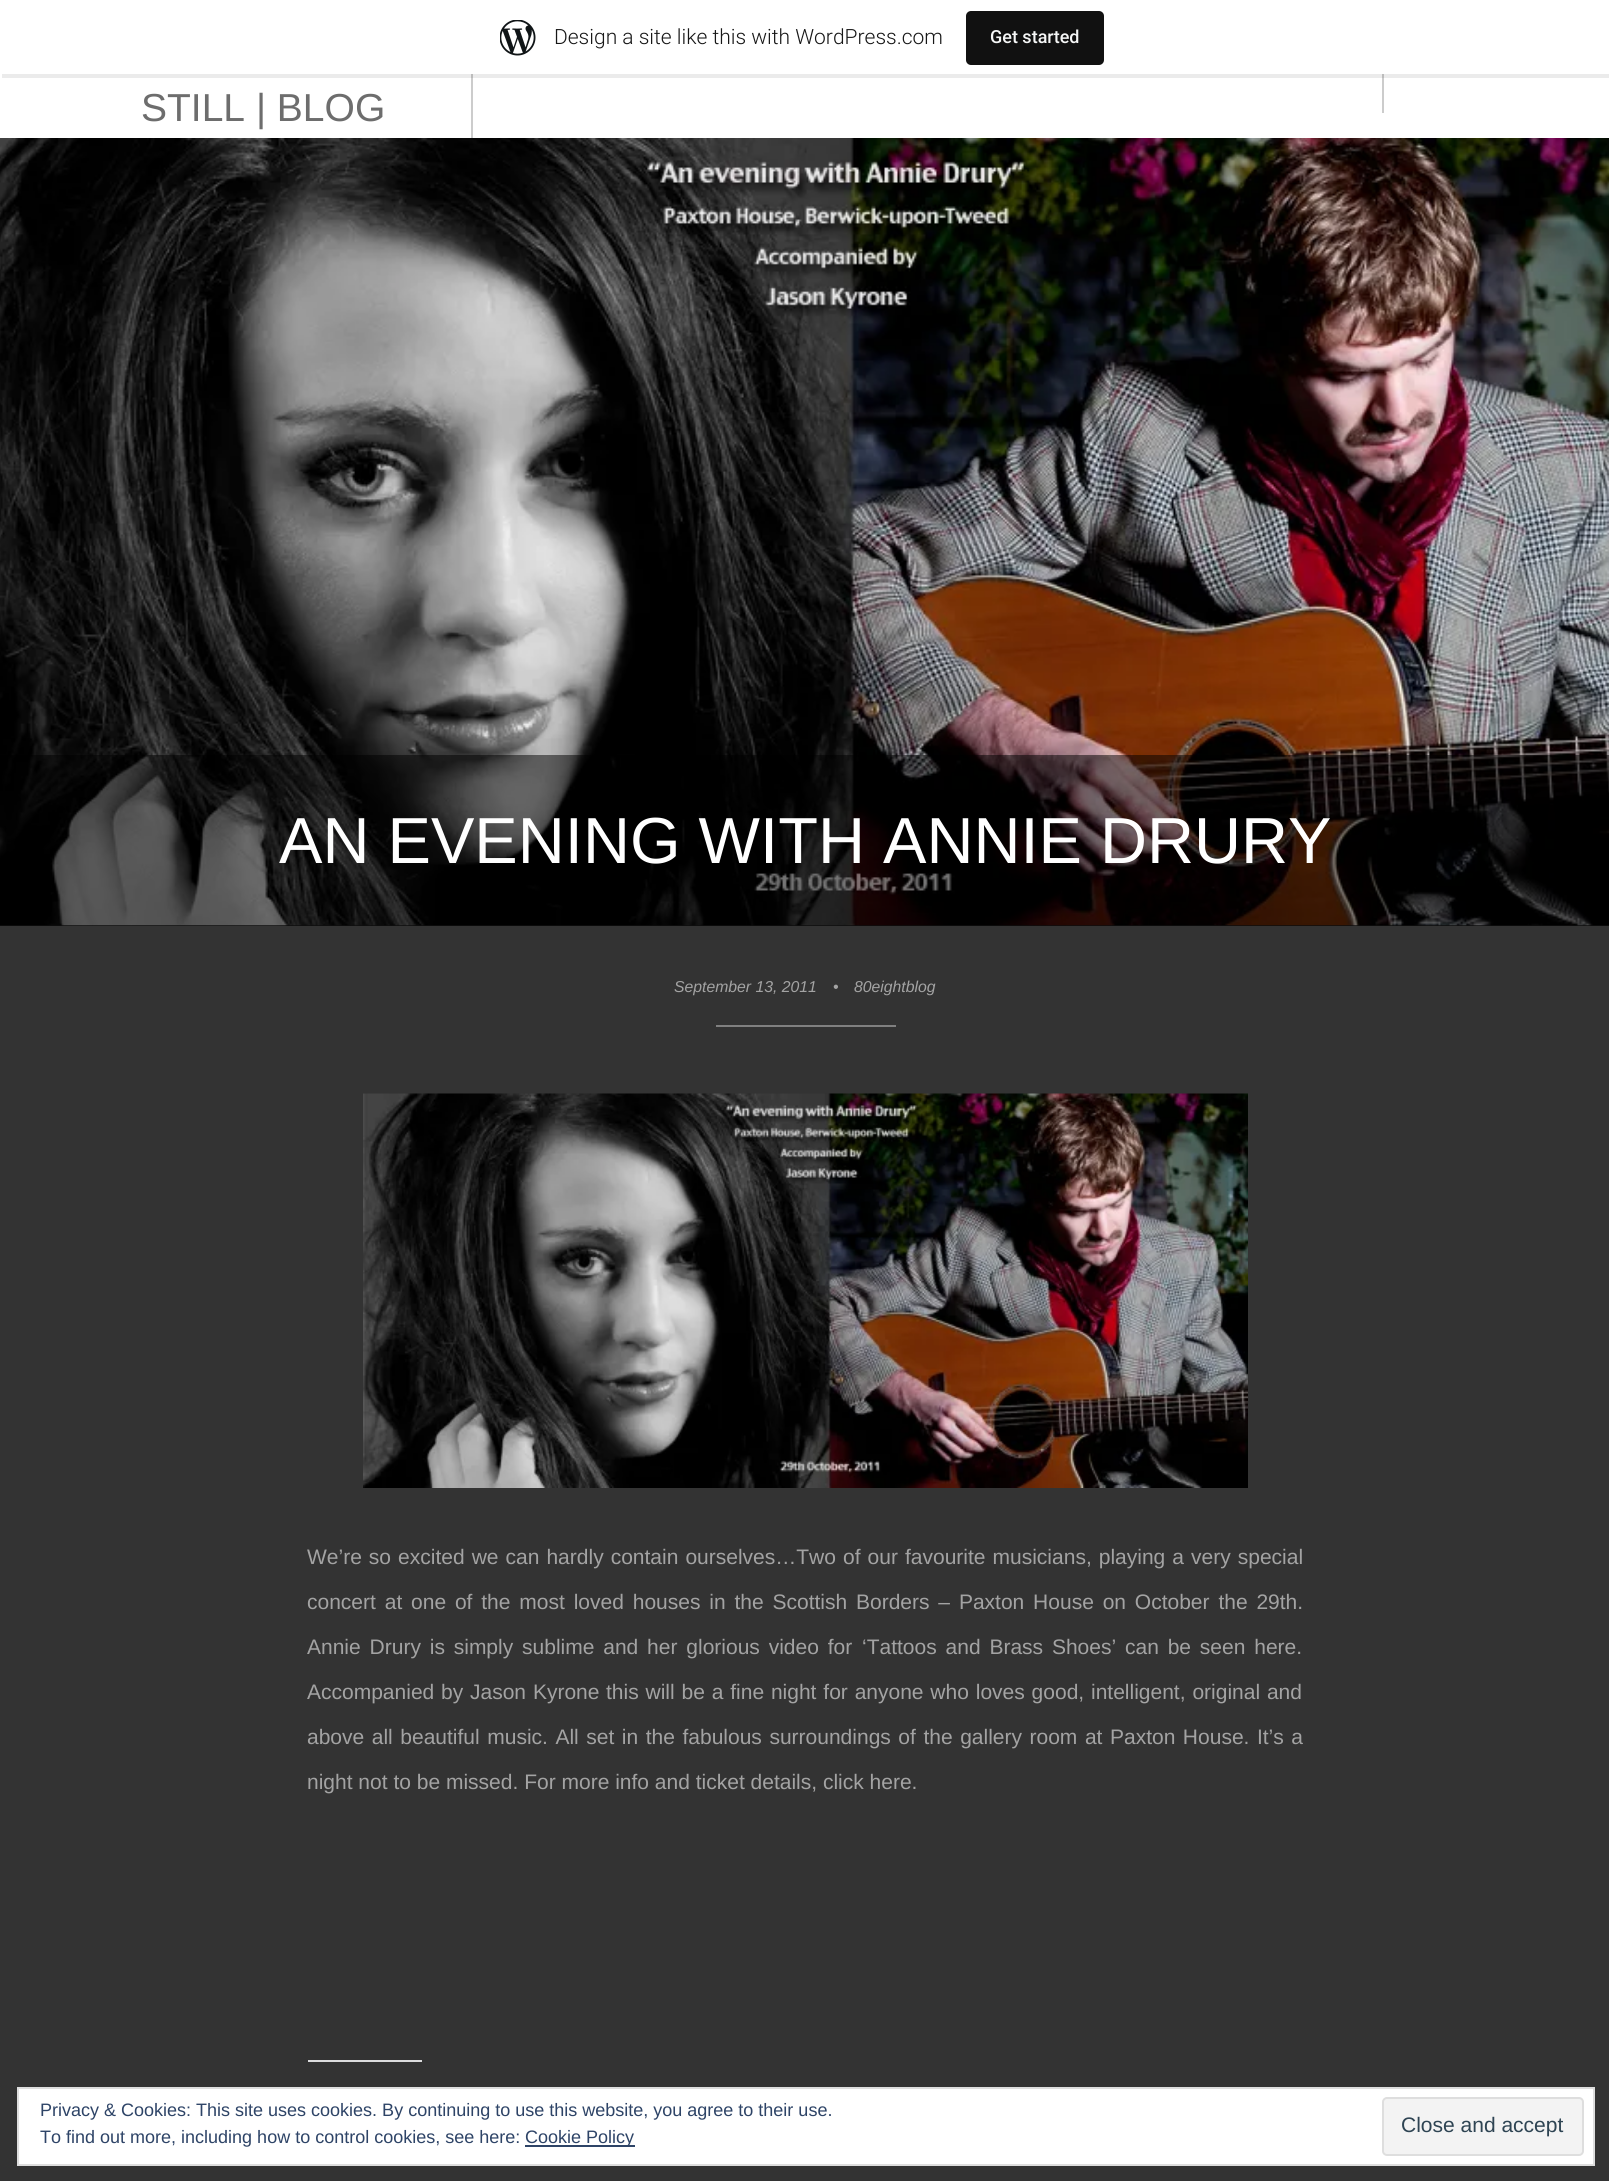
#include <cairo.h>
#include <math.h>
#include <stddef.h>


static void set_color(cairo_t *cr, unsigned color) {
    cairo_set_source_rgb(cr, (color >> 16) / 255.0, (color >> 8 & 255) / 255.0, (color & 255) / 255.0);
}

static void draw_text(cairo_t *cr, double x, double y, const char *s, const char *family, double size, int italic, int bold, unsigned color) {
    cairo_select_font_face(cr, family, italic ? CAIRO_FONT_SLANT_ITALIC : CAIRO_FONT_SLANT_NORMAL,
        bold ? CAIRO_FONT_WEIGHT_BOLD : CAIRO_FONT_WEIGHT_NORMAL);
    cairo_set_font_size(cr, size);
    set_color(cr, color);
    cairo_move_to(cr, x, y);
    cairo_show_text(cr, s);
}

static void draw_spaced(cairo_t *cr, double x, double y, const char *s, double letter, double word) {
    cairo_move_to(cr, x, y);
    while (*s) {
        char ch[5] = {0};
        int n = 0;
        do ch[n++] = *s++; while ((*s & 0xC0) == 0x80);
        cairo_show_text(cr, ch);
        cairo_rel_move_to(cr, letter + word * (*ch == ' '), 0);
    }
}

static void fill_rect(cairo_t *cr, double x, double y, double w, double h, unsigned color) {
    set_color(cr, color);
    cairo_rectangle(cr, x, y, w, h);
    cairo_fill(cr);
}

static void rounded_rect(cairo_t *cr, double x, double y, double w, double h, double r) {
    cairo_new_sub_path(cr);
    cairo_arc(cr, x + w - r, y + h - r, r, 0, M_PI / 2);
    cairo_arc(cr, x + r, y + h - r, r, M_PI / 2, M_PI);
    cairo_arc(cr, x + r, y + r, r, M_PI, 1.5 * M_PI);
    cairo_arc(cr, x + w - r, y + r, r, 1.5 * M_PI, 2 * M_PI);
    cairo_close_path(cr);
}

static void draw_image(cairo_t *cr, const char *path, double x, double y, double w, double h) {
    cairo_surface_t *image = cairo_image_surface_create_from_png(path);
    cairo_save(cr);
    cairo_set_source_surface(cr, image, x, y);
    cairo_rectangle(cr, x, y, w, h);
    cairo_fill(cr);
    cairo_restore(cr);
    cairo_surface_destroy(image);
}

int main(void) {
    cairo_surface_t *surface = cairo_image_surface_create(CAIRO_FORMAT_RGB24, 1609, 2181);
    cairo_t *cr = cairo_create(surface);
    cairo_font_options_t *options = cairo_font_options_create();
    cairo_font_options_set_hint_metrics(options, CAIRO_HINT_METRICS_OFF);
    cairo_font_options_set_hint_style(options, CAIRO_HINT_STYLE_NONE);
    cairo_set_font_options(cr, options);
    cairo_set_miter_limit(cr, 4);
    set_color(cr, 0x333333);
    cairo_paint(cr);
    fill_rect(cr, 0, 0, 1609, 138, 0xFFFFFF);
    fill_rect(cr, 471, 74, 2, 64, 0xCCCCCC);
    fill_rect(cr, 1382, 74, 2, 39, 0xCCCCCC);
    cairo_set_source_rgba(cr, 0, 0, 0, 0.08);
    cairo_new_path(cr);
    cairo_move_to(cr, 2, 74);
    cairo_line_to(cr, 2, 78);
    cairo_line_to(cr, 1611, 78);
    cairo_line_to(cr, 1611, 5);
    cairo_line_to(cr, 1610, 5);
    cairo_line_to(cr, 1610, 74);
    cairo_close_path(cr);
    cairo_fill(cr);
    draw_image(cr, "assets/img1.png", 500, 20, 36, 36);
    draw_text(cr, 554, 44, "Design a site like this with WordPress.com", "Roboto Light", 21, 0, 0, 0x171717);
    set_color(cr, 0x111111);
    rounded_rect(cr, 966, 11, 138, 54, 5);
    cairo_fill(cr);
    draw_text(cr, 990, 43, "Get started", "Roboto Medium", 18, 0, 0, 0xF6F7F7);
    draw_text(cr, 141, 121, "STILL | BLOG", "Arimo", 39, 0, 0, 0x6D6D6D);
    fill_rect(cr, 0, 925, 1609, 1, 0x1E1E1E);
    draw_image(cr, "assets/img2.png", 0, 138, 1609, 788);
    cairo_set_source_rgba(cr, 0, 0, 0, 0.5);
    cairo_rectangle(cr, 0, 755, 1609, 171);
    cairo_fill(cr);
    draw_text(cr, 279, 863, "AN EVENING WITH ANNIE DRURY", "Arimo", 65.1, 0, 0, 0xFFFFFF);
    draw_text(cr, 674, 992, "September 13, 2011", "Arimo", 15.75, 1, 0, 0xA3A3A3);
    draw_text(cr, 833, 992, "•", "Arimo", 15.75, 1, 0, 0xA3A3A3);
    draw_text(cr, 854, 992, "80eightblog", "Arimo", 15.75, 1, 0, 0xA3A3A3);
    fill_rect(cr, 716, 1025, 180, 2, 0x808080);
    draw_image(cr, "assets/img3.png", 363, 1093, 885, 395);
    cairo_select_font_face(cr, "Arimo", CAIRO_FONT_SLANT_NORMAL, CAIRO_FONT_WEIGHT_NORMAL);
    cairo_set_font_size(cr, 21);
    set_color(cr, 0xA3A3A3);
    draw_spaced(cr, 307, 1564, "We’re so excited we can hardly contain ourselves…Two of our favourite musicians, playing a very special", 0, 1.2);
    draw_spaced(cr, 307, 1609, "concert at one of the most loved houses in the Scottish Borders – Paxton House on October the 29th.", 0, 3);
    draw_spaced(cr, 307, 1654, "Annie Drury is simply sublime and her glorious video for", 0, 3);
    draw_spaced(cr, 862, 1654, "‘Tattoos and Brass Shoes’ can be seen here.", 0, 3);
    draw_spaced(cr, 307, 1699, "Accompanied by", 0, 1);
    draw_spaced(cr, 470, 1699, "Jason Kyrone", 0, 1);
    draw_spaced(cr, 606, 1699, "this will be a fine night for anyone who loves good, intelligent, original and", 0, 1);
    draw_spaced(cr, 307, 1744, "above all beautiful music. All set in the fabulous surroundings of the gallery room at Paxton House. It’s a", 0, 1.7);
    draw_text(cr, 307, 1789, "night not to be missed. For more info and ticket details, click here.", "Arimo", 21, 0, 0, 0xA3A3A3);
    fill_rect(cr, 308, 2060, 114, 2, 0xDCDCDE);
    set_color(cr, 0xFFFFFF);
    cairo_rectangle(cr, 18, 2088, 1576, 77);
    cairo_fill_preserve(cr);
    set_color(cr, 0xDEDEDE);
    cairo_stroke(cr);
    draw_text(cr, 40, 2116, "Privacy & Cookies: This site uses cookies. By continuing to use this website, you agree to their use.", "Arimo", 18, 0, 0, 0x2E4467);
    draw_text(cr, 40, 2143, "To find out more, including how to control cookies, see here:", "Arimo", 18, 0, 0, 0x2E4467);
    fill_rect(cr, 525, 2145, 110, 2, 0x2E4467);
    draw_text(cr, 525, 2143, "Cookie Policy", "Arimo", 18, 0, 0, 0x2E4467);
    set_color(cr, 0xF3F3F3);
    rounded_rect(cr, 1383, 2098, 200, 57, 4);
    cairo_fill_preserve(cr);
    set_color(cr, 0xDEDEDE);
    cairo_stroke(cr);
    draw_text(cr, 1401, 2132, "Close and accept", "Arimo", 21, 0, 0, 0x2E4453);
    cairo_surface_write_to_png(surface, "output.png");
    cairo_font_options_destroy(options);
    cairo_destroy(cr);
    cairo_surface_destroy(surface);
    return 0;
}
